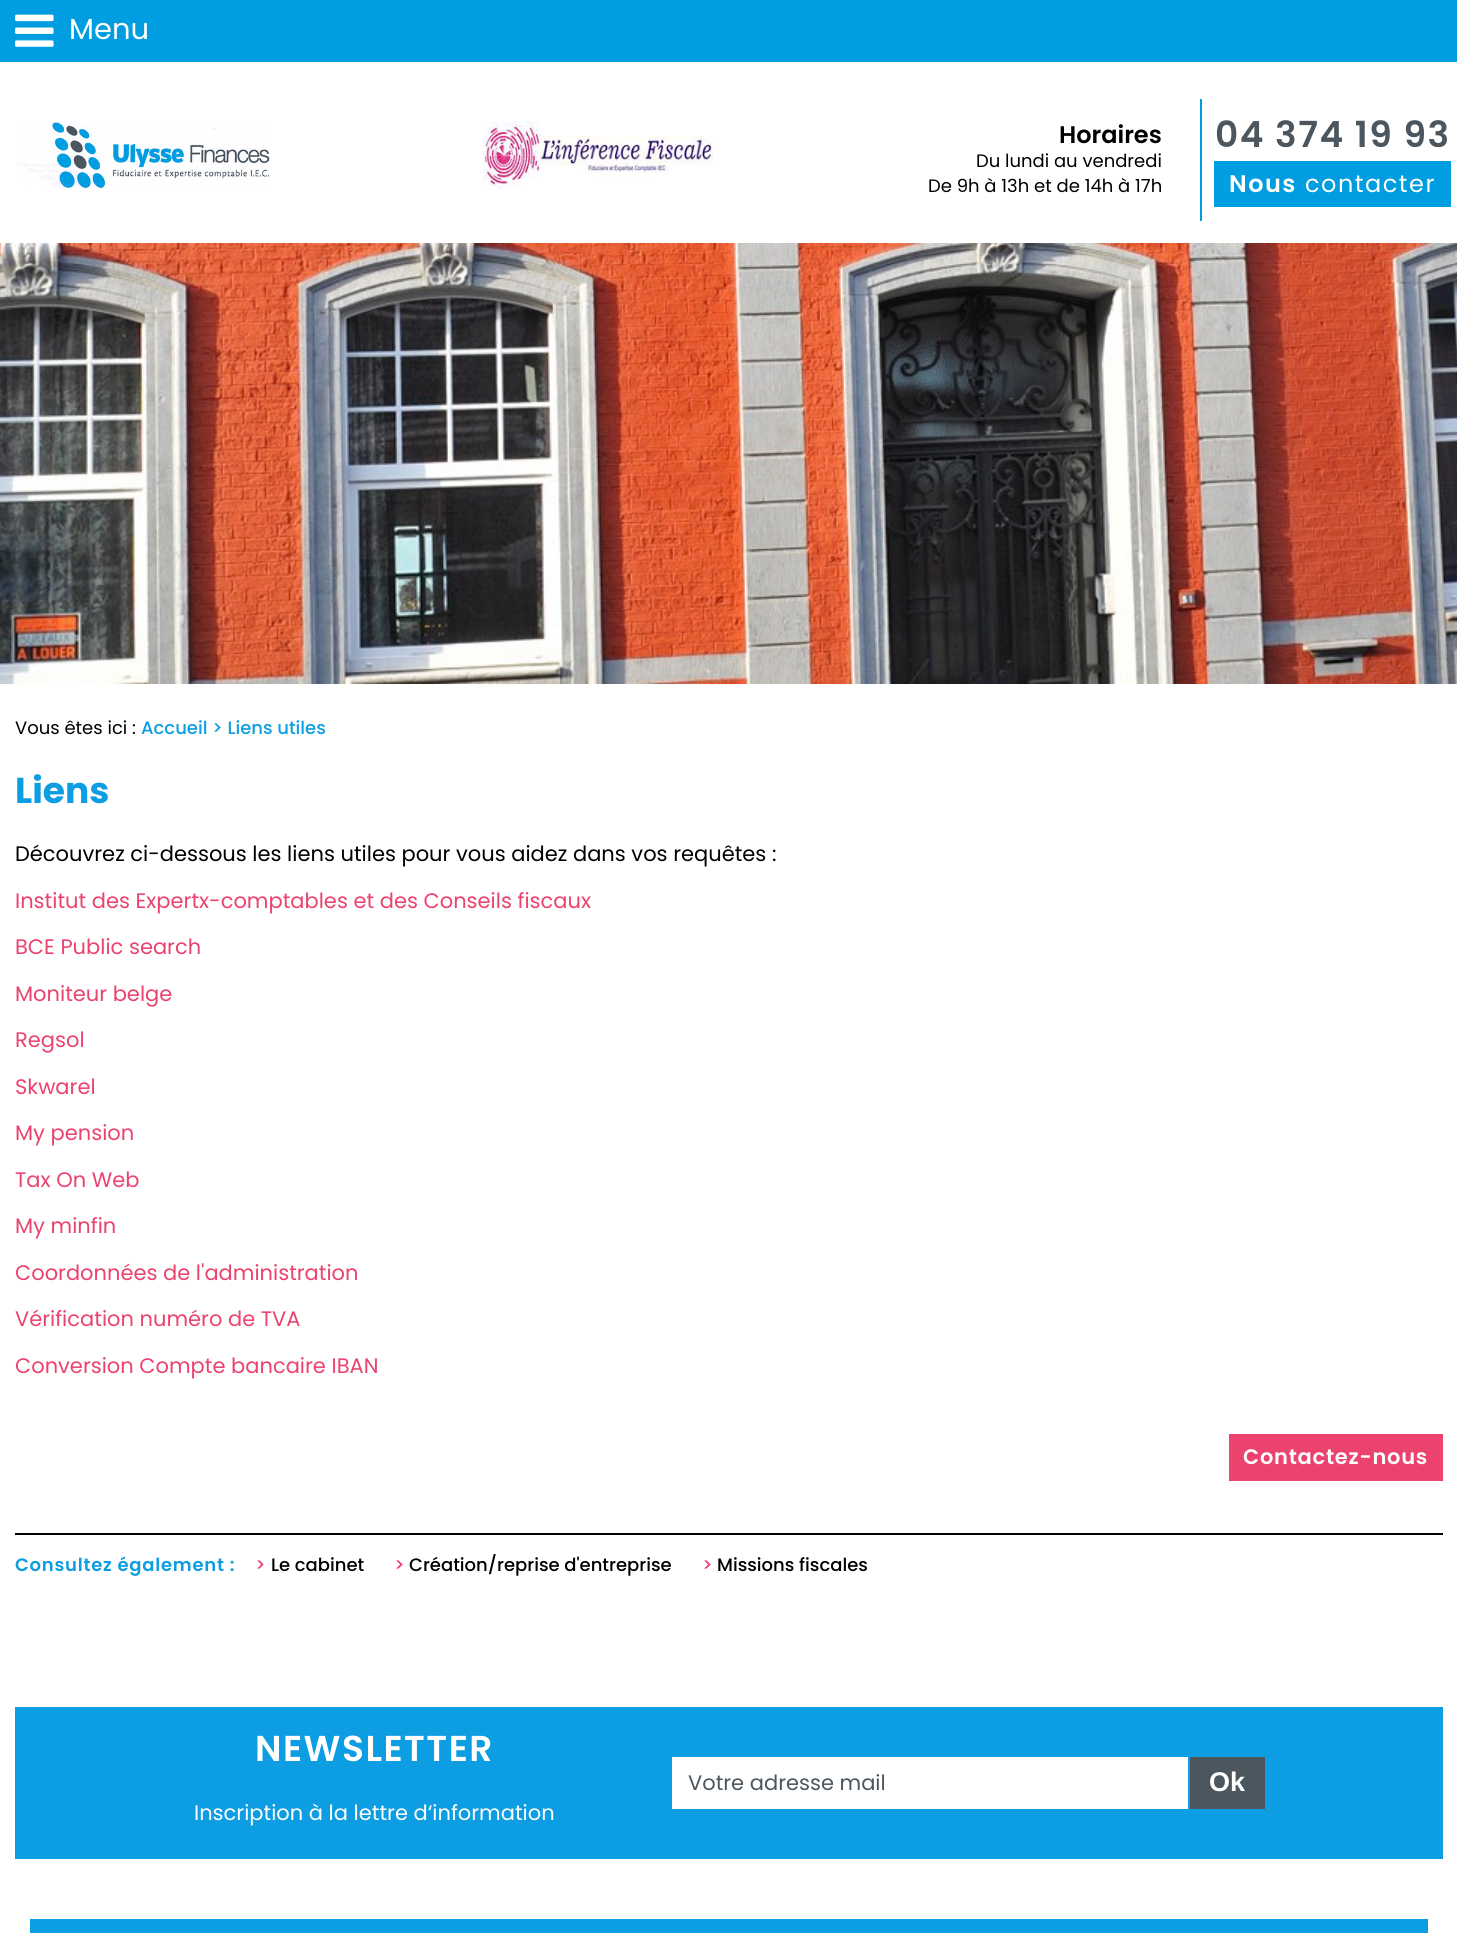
#include <cairo.h>
#include <math.h>
#include <stddef.h>


static void set_color(cairo_t *cr, unsigned color) {
    cairo_set_source_rgb(cr, (color >> 16) / 255.0, (color >> 8 & 255) / 255.0, (color & 255) / 255.0);
}

static void draw_text(cairo_t *cr, double x, double y, const char *s, const char *family, double size, int italic, int bold, unsigned color) {
    cairo_select_font_face(cr, family, italic ? CAIRO_FONT_SLANT_ITALIC : CAIRO_FONT_SLANT_NORMAL,
        bold ? CAIRO_FONT_WEIGHT_BOLD : CAIRO_FONT_WEIGHT_NORMAL);
    cairo_set_font_size(cr, size);
    set_color(cr, color);
    cairo_move_to(cr, x, y);
    cairo_show_text(cr, s);
}

static void draw_spaced(cairo_t *cr, double x, double y, const char *s, double letter, double word) {
    cairo_move_to(cr, x, y);
    while (*s) {
        char ch[5] = {0};
        int n = 0;
        do ch[n++] = *s++; while ((*s & 0xC0) == 0x80);
        cairo_show_text(cr, ch);
        cairo_rel_move_to(cr, letter + word * (*ch == ' '), 0);
    }
}

static void fill_rect(cairo_t *cr, double x, double y, double w, double h, unsigned color) {
    set_color(cr, color);
    cairo_rectangle(cr, x, y, w, h);
    cairo_fill(cr);
}

static void draw_image(cairo_t *cr, const char *path, double x, double y, double w, double h) {
    cairo_surface_t *image = cairo_image_surface_create_from_png(path);
    cairo_save(cr);
    cairo_set_source_surface(cr, image, x, y);
    cairo_rectangle(cr, x, y, w, h);
    cairo_fill(cr);
    cairo_restore(cr);
    cairo_surface_destroy(image);
}

int main(void) {
    cairo_surface_t *surface = cairo_image_surface_create(CAIRO_FORMAT_RGB24, 1457, 1933);
    cairo_t *cr = cairo_create(surface);
    cairo_font_options_t *options = cairo_font_options_create();
    cairo_font_options_set_hint_metrics(options, CAIRO_HINT_METRICS_OFF);
    cairo_font_options_set_hint_style(options, CAIRO_HINT_STYLE_NONE);
    cairo_set_font_options(cr, options);
    cairo_set_miter_limit(cr, 4);
    set_color(cr, 0xFFFFFF);
    cairo_paint(cr);
    fill_rect(cr, 0, 0, 1457, 62, 0x009DE0);
    draw_image(cr, "assets/img1.png", 15, 14, 39, 33);
    draw_text(cr, 69, 39, "Menu", "Poppins", 29, 0, 0, 0xFFFFFF);
    draw_image(cr, "assets/img2.png", 16, 122, 254, 67);
    draw_image(cr, "assets/img3.png", 483, 121, 230, 68);
    fill_rect(cr, 1200, 99, 2, 122, 0x009EE0);
    draw_text(cr, 1059, 143, "Horaires", "Poppins SemiBold", 24, 0, 0, 0x000000);
    draw_text(cr, 976, 167, "Du lundi au vendredi", "Poppins", 18, 0, 0, 0x000000);
    draw_text(cr, 928, 192, "De 9h à 13h et de 14h à 17h", "Poppins", 18, 0, 0, 0x000000);
    cairo_select_font_face(cr, "Poppins SemiBold", CAIRO_FONT_SLANT_NORMAL, CAIRO_FONT_WEIGHT_NORMAL);
    cairo_set_font_size(cr, 36);
    set_color(cr, 0x4B565E);
    draw_spaced(cr, 1215, 147, "04 374 19 93", 1.5, 0);
    fill_rect(cr, 1214, 161, 237, 46, 0x009DE0);
    cairo_set_font_size(cr, 24);
    set_color(cr, 0xFFFFFF);
    draw_spaced(cr, 1229, 192, "Nous", 1.5, 0);
    cairo_select_font_face(cr, "Poppins", CAIRO_FONT_SLANT_NORMAL, CAIRO_FONT_WEIGHT_NORMAL);
    draw_spaced(cr, 1305, 192, "contacter", 1.5, 0);
    draw_image(cr, "assets/img4.png", 0, 243, 1457, 441);
    draw_text(cr, 15, 734, "Vous êtes ici :", "Poppins", 18, 0, 0, 0x000000);
    draw_text(cr, 141, 734, "Accueil > Liens utiles", "Poppins Medium", 18, 0, 0, 0x0D9DE2);
    draw_text(cr, 15, 803, "Liens", "Poppins", 36, 0, 1, 0x0D9DE2);
    draw_text(cr, 15, 861, "Découvrez ci-dessous les liens utiles pour vous aidez dans vos requêtes :", "Poppins", 21, 0, 0, 0x000000);
    draw_text(cr, 15, 908, "Institut des Expertx-comptables et des Conseils fiscaux", "Poppins", 21, 0, 0, 0xEB426E);
    draw_text(cr, 15, 954, "BCE Public search", "Poppins", 21, 0, 0, 0xEB426E);
    draw_text(cr, 15, 1001, "Moniteur belge", "Poppins", 21, 0, 0, 0xEB426E);
    draw_text(cr, 15, 1047, "Regsol", "Poppins", 21, 0, 0, 0xEB426E);
    draw_text(cr, 15, 1094, "Skwarel", "Poppins", 21, 0, 0, 0xEB426E);
    draw_text(cr, 15, 1140, "My pension", "Poppins", 21, 0, 0, 0xEB426E);
    draw_text(cr, 15, 1187, "Tax On Web", "Poppins", 21, 0, 0, 0xEB426E);
    draw_text(cr, 15, 1233, "My minfin", "Poppins", 21, 0, 0, 0xEB426E);
    draw_text(cr, 15, 1280, "Coordonnées de l'administration", "Poppins", 21, 0, 0, 0xEB426E);
    draw_text(cr, 15, 1326, "Vérification numéro de TVA", "Poppins", 21, 0, 0, 0xEB426E);
    draw_text(cr, 15, 1373, "Conversion Compte bancaire IBAN", "Poppins", 21, 0, 0, 0xEB426E);
    fill_rect(cr, 1229, 1434, 214, 47, 0xEB426E);
    cairo_select_font_face(cr, "Poppins SemiBold", CAIRO_FONT_SLANT_NORMAL, CAIRO_FONT_WEIGHT_NORMAL);
    set_color(cr, 0xFFFFFF);
    draw_spaced(cr, 1243, 1464, "Contactez-nous", 0.75, 0);
    fill_rect(cr, 15, 1533, 1428, 2, 0x000000);
    cairo_set_font_size(cr, 18);
    set_color(cr, 0x0D9DE2);
    draw_spaced(cr, 15, 1571, "Consultez également :", 0.75, 0);
    draw_text(cr, 255, 1571, ">", "Poppins Medium", 18, 0, 0, 0xEB426E);
    draw_text(cr, 271, 1571, "Le cabinet", "Poppins Medium", 18, 0, 0, 0x000000);
    draw_text(cr, 394, 1571, ">", "Poppins Medium", 18, 0, 0, 0xEB426E);
    draw_text(cr, 409, 1571, "Création/reprise d'entreprise", "Poppins Medium", 18, 0, 0, 0x000000);
    draw_text(cr, 702, 1571, ">", "Poppins Medium", 18, 0, 0, 0xEB426E);
    draw_text(cr, 717, 1571, "Missions fiscales", "Poppins Medium", 18, 0, 0, 0x000000);
    fill_rect(cr, 15, 1707, 1428, 152, 0x0D9DE2);
    cairo_select_font_face(cr, "Poppins SemiBold", CAIRO_FONT_SLANT_NORMAL, CAIRO_FONT_WEIGHT_NORMAL);
    cairo_set_font_size(cr, 36);
    set_color(cr, 0xFFFFFF);
    draw_spaced(cr, 255, 1761, "NEWSLETTER", 1.5, 0);
    draw_text(cr, 194, 1820, "Inscription à la lettre d‘information", "Poppins", 21, 0, 0, 0xFFFFFF);
    fill_rect(cr, 672, 1757, 516, 52, 0xFFFFFF);
    draw_text(cr, 688, 1790, "Votre adresse mail", "Poppins", 21, 0, 0, 0x4B565E);
    fill_rect(cr, 1190, 1757, 75, 52, 0x4B565E);
    draw_text(cr, 1209, 1791, "Ok", "Liberation Sans", 27, 0, 1, 0xFFFFFF);
    fill_rect(cr, 30, 1919, 1398, 14, 0x0D9DE2);
    cairo_surface_write_to_png(surface, "output.png");
    cairo_font_options_destroy(options);
    cairo_destroy(cr);
    cairo_surface_destroy(surface);
    return 0;
}
